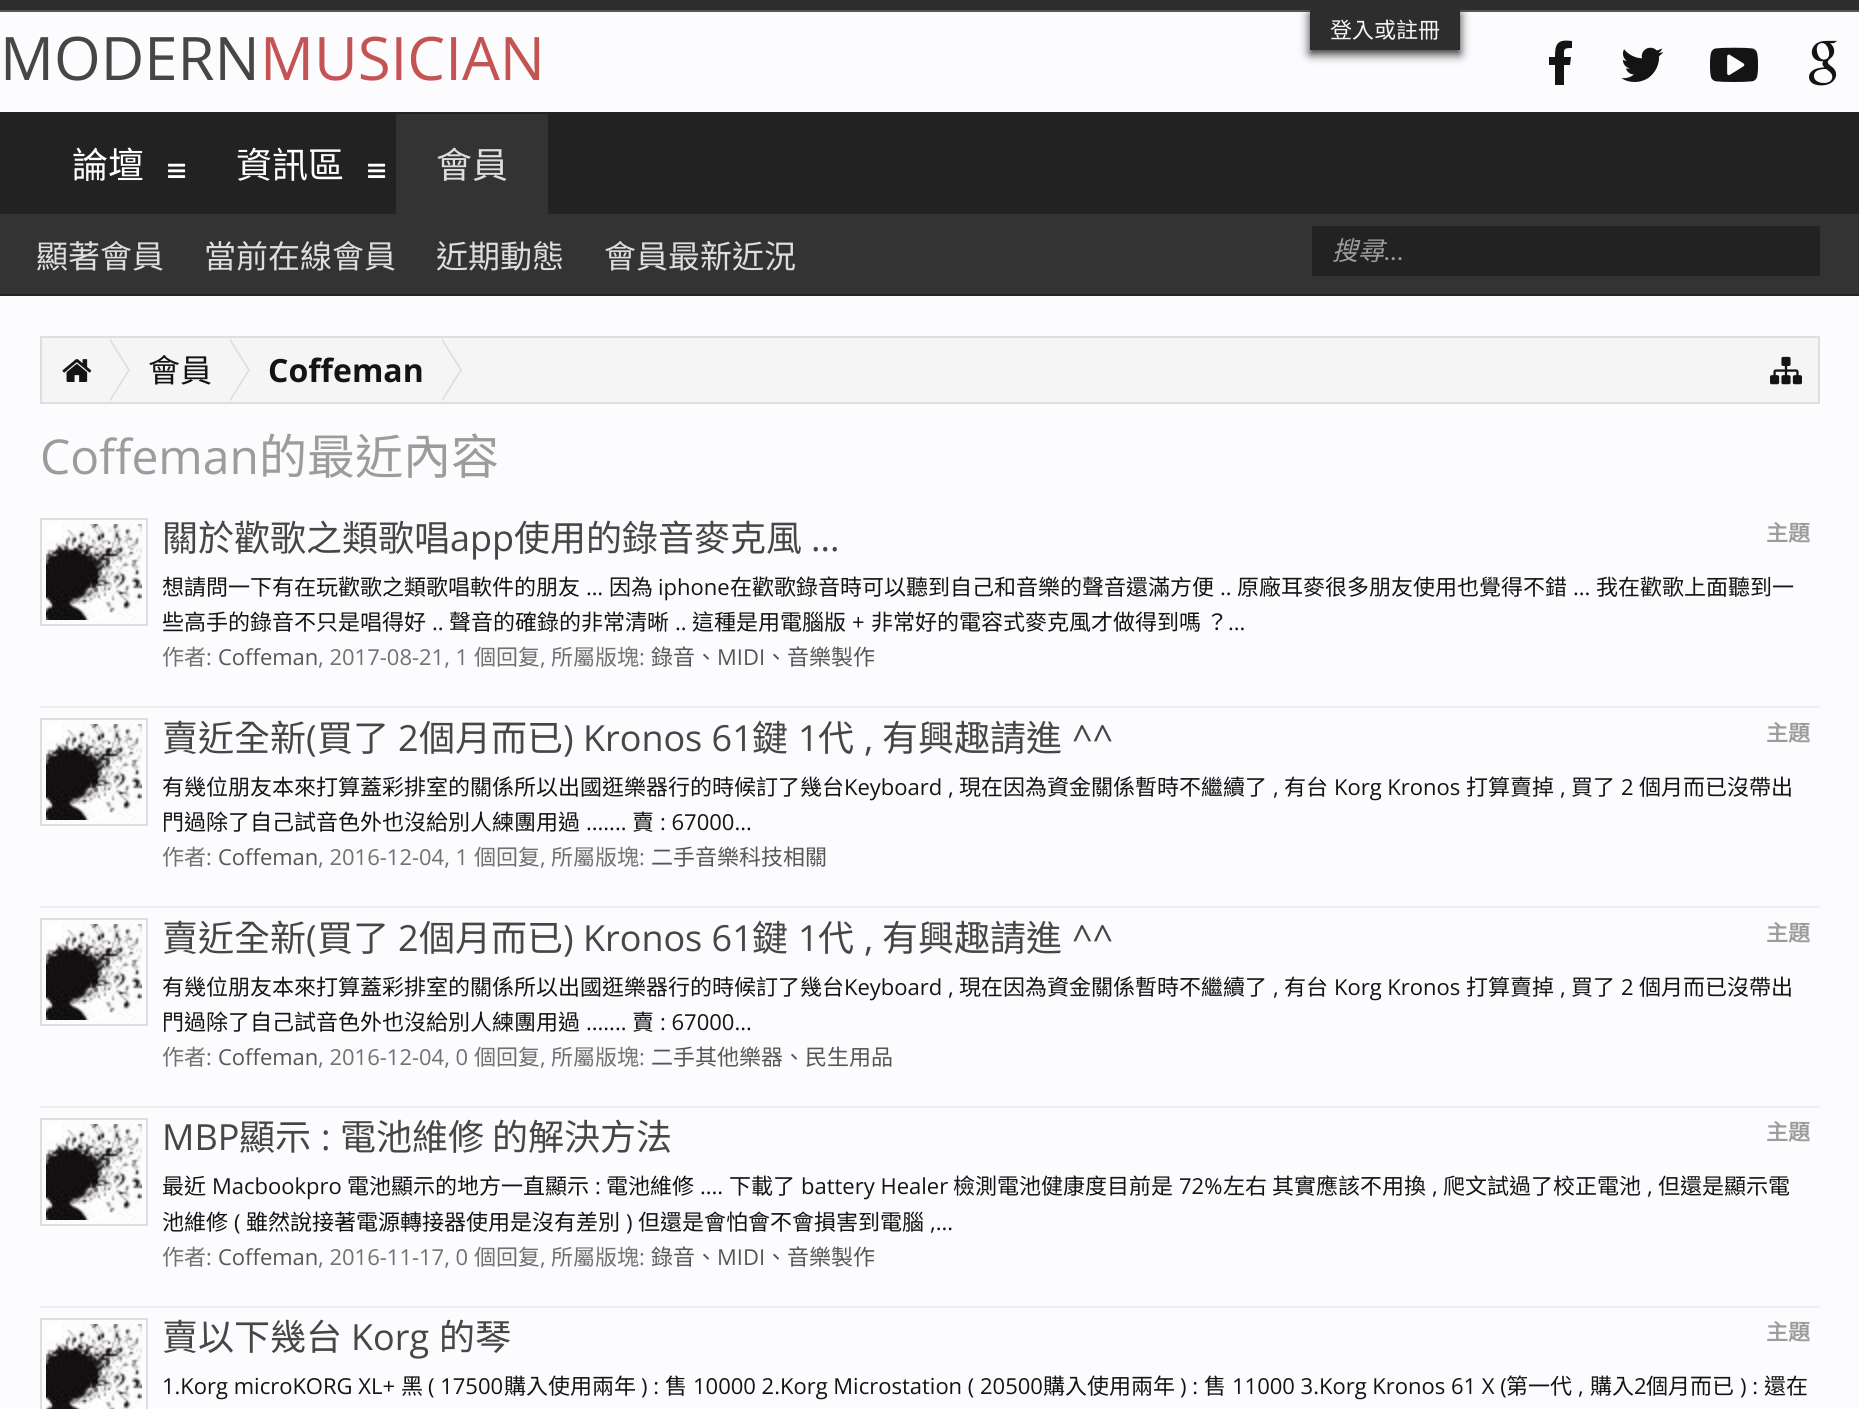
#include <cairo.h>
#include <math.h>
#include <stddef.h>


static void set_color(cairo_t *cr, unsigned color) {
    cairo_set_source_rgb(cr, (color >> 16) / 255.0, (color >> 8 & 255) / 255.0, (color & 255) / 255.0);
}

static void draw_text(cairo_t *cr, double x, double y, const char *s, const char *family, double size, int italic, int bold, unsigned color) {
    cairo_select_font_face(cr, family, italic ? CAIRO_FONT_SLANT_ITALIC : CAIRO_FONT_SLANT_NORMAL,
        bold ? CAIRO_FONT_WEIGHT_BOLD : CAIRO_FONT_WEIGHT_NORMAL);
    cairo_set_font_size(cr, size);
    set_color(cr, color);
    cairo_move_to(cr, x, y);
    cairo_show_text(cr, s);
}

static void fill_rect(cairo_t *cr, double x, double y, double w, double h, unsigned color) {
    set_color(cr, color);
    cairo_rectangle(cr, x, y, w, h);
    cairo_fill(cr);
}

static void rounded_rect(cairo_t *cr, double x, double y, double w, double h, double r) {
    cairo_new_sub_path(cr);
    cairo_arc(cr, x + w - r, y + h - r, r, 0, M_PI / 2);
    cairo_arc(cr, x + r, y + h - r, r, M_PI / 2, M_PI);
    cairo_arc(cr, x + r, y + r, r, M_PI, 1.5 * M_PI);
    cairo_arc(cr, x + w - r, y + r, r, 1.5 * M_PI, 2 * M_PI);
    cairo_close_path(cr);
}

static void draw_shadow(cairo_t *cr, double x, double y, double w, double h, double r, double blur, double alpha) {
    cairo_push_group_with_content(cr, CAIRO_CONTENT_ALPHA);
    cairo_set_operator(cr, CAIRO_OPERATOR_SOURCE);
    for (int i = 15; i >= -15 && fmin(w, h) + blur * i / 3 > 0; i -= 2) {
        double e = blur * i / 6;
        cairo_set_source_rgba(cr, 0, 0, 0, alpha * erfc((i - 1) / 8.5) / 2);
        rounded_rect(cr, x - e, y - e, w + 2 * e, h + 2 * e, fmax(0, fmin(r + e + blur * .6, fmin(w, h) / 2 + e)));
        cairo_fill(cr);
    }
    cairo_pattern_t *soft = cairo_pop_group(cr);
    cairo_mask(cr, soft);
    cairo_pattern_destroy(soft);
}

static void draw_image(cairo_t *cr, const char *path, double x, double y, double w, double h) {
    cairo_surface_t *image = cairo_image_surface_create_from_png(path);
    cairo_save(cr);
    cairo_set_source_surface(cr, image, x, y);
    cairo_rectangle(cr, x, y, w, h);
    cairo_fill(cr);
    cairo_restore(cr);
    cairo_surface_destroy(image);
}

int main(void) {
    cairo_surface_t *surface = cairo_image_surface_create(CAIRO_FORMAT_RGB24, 1859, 1409);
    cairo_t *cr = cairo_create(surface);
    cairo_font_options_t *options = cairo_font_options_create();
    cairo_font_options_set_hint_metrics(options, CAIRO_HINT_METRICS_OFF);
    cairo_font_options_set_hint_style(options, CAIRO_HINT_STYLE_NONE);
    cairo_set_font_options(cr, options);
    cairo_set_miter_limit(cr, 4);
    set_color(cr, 0x222222);
    cairo_paint(cr);
    fill_rect(cr, 0, 0, 1859, 10, 0x2D2D2D);
    fill_rect(cr, 0, 10, 1859, 2, 0x585858);
    fill_rect(cr, 0, 12, 1859, 100, 0xFCFCFF);
    set_color(cr, 0x2D2D2D);
    draw_shadow(cr, 1310, 14, 150, 40, 0, 5, 1);
    fill_rect(cr, 1310, 10, 150, 40, 0x2D2D2D);
    draw_text(cr, 1330, 38, "登入或註冊", "Noto Sans CJK TC", 22, 0, 0, 0xF5F5F5);
    draw_text(cr, 0, 80, "MODERN", "Open Sans", 60, 0, 0, 0x464646);
    draw_text(cr, 260, 80, "MUSICIAN", "Open Sans", 60, 0, 0, 0xC45454);
    set_color(cr, 0x141414);
    cairo_new_path(cr);
    cairo_move_to(cr, 1572, 41);
    cairo_line_to(cr, 1572, 48);
    cairo_curve_to(cr, 1563, 48, 1564, 49, 1564, 57);
    cairo_line_to(cr, 1571, 57);
    cairo_line_to(cr, 1570, 65);
    cairo_line_to(cr, 1564, 65);
    cairo_line_to(cr, 1564, 85);
    cairo_line_to(cr, 1555, 85);
    cairo_line_to(cr, 1555, 65);
    cairo_line_to(cr, 1549, 65);
    cairo_line_to(cr, 1549, 57);
    cairo_line_to(cr, 1555, 57);
    cairo_curve_to(cr, 1555, 44, 1557, 39, 1572, 41);
    cairo_close_path(cr);
    cairo_fill(cr);
    draw_image(cr, "assets/img1.png", 1621, 47, 43, 35);
    draw_image(cr, "assets/img2.png", 1710, 47, 48, 35);
    draw_image(cr, "assets/img3.png", 1809, 40, 29, 46);
    fill_rect(cr, 396, 114, 152, 100, 0x333333);
    draw_text(cr, 436, 178, "會員", "Noto Sans CJK TC", 36, 0, 0, 0xDEDEDE);
    fill_rect(cr, 0, 214, 1859, 80, 0x333333);
    draw_text(cr, 36, 268, "顯著會員", "Noto Sans CJK TC", 32, 0, 0, 0xDEDEDE);
    draw_text(cr, 204, 268, "當前在線會員", "Noto Sans CJK TC", 32, 0, 0, 0xDEDEDE);
    draw_text(cr, 436, 268, "近期動態", "Noto Sans CJK TC", 32, 0, 0, 0xDEDEDE);
    draw_text(cr, 604, 268, "會員最新近況", "Noto Sans CJK TC", 32, 0, 0, 0xDEDEDE);
    draw_text(cr, 72, 178, "論壇", "Noto Sans CJK TC", 36, 0, 0, 0xFFFFFF);
    draw_image(cr, "assets/img4.png", 168, 163, 18, 15);
    draw_text(cr, 236, 178, "資訊區", "Noto Sans CJK TC", 36, 0, 0, 0xFFFFFF);
    draw_image(cr, "assets/img4.png", 368, 163, 18, 15);
    fill_rect(cr, 1312, 226, 508, 50, 0x222222);
    draw_text(cr, 1332, 260, "搜尋", "Noto Sans CJK TC", 26, 1, 0, 0x9C9C9C);
    draw_text(cr, 1384, 260, "...", "Carlito", 26, 1, 0, 0x9C9C9C);
    fill_rect(cr, 0, 296, 1859, 1113, 0xFCFCFF);
    set_color(cr, 0xF5F5F5);
    cairo_rectangle(cr, 41, 337, 1778, 66);
    cairo_fill_preserve(cr);
    set_color(cr, 0xDEDEDE);
    cairo_stroke(cr);
    draw_image(cr, "assets/img5.png", 62, 359, 30, 23);
    cairo_new_path(cr);
    cairo_move_to(cr, 110, 402);
    cairo_line_to(cr, 110, 338);
    cairo_line_to(cr, 130, 370);
    cairo_close_path(cr);
    cairo_fill(cr);
    set_color(cr, 0xF5F5F5);
    cairo_new_path(cr);
    cairo_move_to(cr, 108, 402);
    cairo_line_to(cr, 108, 338);
    cairo_line_to(cr, 128, 370);
    cairo_close_path(cr);
    cairo_fill(cr);
    draw_text(cr, 148, 382, "會員", "Noto Sans CJK TC", 32, 0, 0, 0x141414);
    set_color(cr, 0xDEDEDE);
    cairo_new_path(cr);
    cairo_move_to(cr, 230, 402);
    cairo_line_to(cr, 230, 338);
    cairo_line_to(cr, 250, 370);
    cairo_close_path(cr);
    cairo_fill(cr);
    set_color(cr, 0xF5F5F5);
    cairo_new_path(cr);
    cairo_move_to(cr, 228, 402);
    cairo_line_to(cr, 228, 338);
    cairo_line_to(cr, 248, 370);
    cairo_close_path(cr);
    cairo_fill(cr);
    draw_text(cr, 268, 382, "Coffeman", "Open Sans", 32, 0, 1, 0x141414);
    set_color(cr, 0xDEDEDE);
    cairo_new_path(cr);
    cairo_move_to(cr, 442, 402);
    cairo_line_to(cr, 442, 338);
    cairo_line_to(cr, 462, 370);
    cairo_close_path(cr);
    cairo_fill(cr);
    set_color(cr, 0xF5F5F5);
    cairo_new_path(cr);
    cairo_move_to(cr, 440, 402);
    cairo_line_to(cr, 440, 338);
    cairo_line_to(cr, 460, 370);
    cairo_close_path(cr);
    cairo_fill(cr);
    draw_image(cr, "assets/img6.png", 1770, 356, 32, 29);
    draw_text(cr, 40, 474, "Coffeman", "Open Sans", 48, 0, 0, 0x9C9C9C);
    draw_text(cr, 259, 474, "的最近內容", "Noto Sans CJK TC", 48, 0, 0, 0x9C9C9C);
    fill_rect(cr, 40, 706, 1780, 2, 0xEFEFEF);
    cairo_rectangle(cr, 41, 519, 106, 106);
    set_color(cr, 0xDEDEDE);
    cairo_stroke(cr);
    draw_image(cr, "assets/img7.png", 46, 524, 96, 96);
    draw_text(cr, 162, 551, "關於歡歌之類歌唱", "Noto Sans CJK TC", 36, 0, 0, 0x464646);
    draw_text(cr, 450, 551, "app", "Open Sans", 36, 0, 0, 0x464646);
    draw_text(cr, 514, 551, "使用的錄音麥克風", "Noto Sans CJK TC", 36, 0, 0, 0x464646);
    draw_text(cr, 811, 551, "...", "Open Sans", 36, 0, 0, 0x464646);
    draw_text(cr, 1766, 541, "主題", "Noto Sans CJK TC", 22, 0, 1, 0x9C9C9C);
    draw_text(cr, 162, 595, "想請問一下有在玩歡歌之類歌唱軟件的朋友", "Noto Sans CJK TC", 22, 0, 0, 0x141414);
    draw_text(cr, 586, 595, "…", "Open Sans", 22, 0, 0, 0x141414);
    draw_text(cr, 609, 595, "因為", "Noto Sans CJK TC", 22, 0, 0, 0x141414);
    draw_text(cr, 658, 595, "iphone", "Open Sans", 22, 0, 0, 0x141414);
    draw_text(cr, 730, 595, "在歡歌錄音時可以聽到自己和音樂的聲音還滿方便", "Noto Sans CJK TC", 22, 0, 0, 0x141414);
    draw_text(cr, 1220, 595, "..", "Open Sans", 22, 0, 0, 0x141414);
    draw_text(cr, 1237, 595, "原廠耳麥很多朋友使用也覺得不錯", "Noto Sans CJK TC", 22, 0, 0, 0x141414);
    draw_text(cr, 1573, 595, "...", "Open Sans", 22, 0, 0, 0x141414);
    draw_text(cr, 1596, 595, "我在歡歌上面聽到一", "Noto Sans CJK TC", 22, 0, 0, 0x141414);
    draw_text(cr, 162, 630, "些高手的錄音不只是唱得好", "Noto Sans CJK TC", 22, 0, 0, 0x141414);
    draw_text(cr, 449, 630, "聲音的確錄的非常清晰", "Noto Sans CJK TC", 22, 0, 0, 0x141414);
    draw_text(cr, 692, 630, "這種是用電腦版", "Noto Sans CJK TC", 22, 0, 0, 0x141414);
    draw_text(cr, 852, 630, "+", "Open Sans", 22, 0, 0, 0x141414);
    draw_text(cr, 871, 630, "非常好的電容式麥克風才做得到嗎 ？", "Noto Sans CJK TC", 22, 0, 0, 0x141414);
    draw_text(cr, 432, 630, "..", "Open Sans", 22, 0, 0, 0x141414);
    draw_text(cr, 675, 630, "..", "Open Sans", 22, 0, 0, 0x141414);
    draw_text(cr, 1228, 630, "...", "Open Sans", 22, 0, 0, 0x141414);
    draw_text(cr, 162, 665, "作者", "Noto Sans CJK TC", 22, 0, 0, 0x717171);
    draw_text(cr, 206, 665, ":", "Open Sans", 22, 0, 0, 0x717171);
    draw_text(cr, 218, 665, "Coffeman", "Open Sans", 22, 0, 0, 0x565656);
    draw_text(cr, 318, 665, ", 2017-08-21, 1", "Open Sans", 22, 0, 0, 0x717171);
    draw_text(cr, 474, 665, "個回复", "Noto Sans CJK TC", 22, 0, 0, 0x717171);
    draw_text(cr, 540, 665, ",", "Open Sans", 22, 0, 0, 0x717171);
    draw_text(cr, 551, 665, "所屬版塊", "Noto Sans CJK TC", 22, 0, 0, 0x717171);
    draw_text(cr, 639, 665, ":", "Open Sans", 22, 0, 0, 0x717171);
    draw_text(cr, 651, 665, "錄音、", "Noto Sans CJK TC", 22, 0, 0, 0x565656);
    draw_text(cr, 717, 665, "MIDI", "Open Sans", 22, 0, 0, 0x565656);
    draw_text(cr, 765, 665, "、音樂製作", "Noto Sans CJK TC", 22, 0, 0, 0x565656);
    fill_rect(cr, 40, 906, 1780, 2, 0xEFEFEF);
    cairo_rectangle(cr, 41, 719, 106, 106);
    set_color(cr, 0xDEDEDE);
    cairo_stroke(cr);
    draw_image(cr, "assets/img7.png", 46, 724, 96, 96);
    draw_text(cr, 162, 751, "賣近全新", "Noto Sans CJK TC", 36, 0, 0, 0x464646);
    draw_text(cr, 306, 751, "(", "Open Sans", 36, 0, 0, 0x464646);
    draw_text(cr, 317, 751, "買了", "Noto Sans CJK TC", 36, 0, 0, 0x464646);
    draw_text(cr, 398, 751, "2", "Open Sans", 36, 0, 0, 0x464646);
    draw_text(cr, 419, 751, "個月而已", "Noto Sans CJK TC", 36, 0, 0, 0x464646);
    draw_text(cr, 563, 751, ") Kronos 61", "Open Sans", 36, 0, 0, 0x464646);
    draw_text(cr, 752, 751, "鍵", "Noto Sans CJK TC", 36, 0, 0, 0x464646);
    draw_text(cr, 798, 751, "1", "Open Sans", 36, 0, 0, 0x464646);
    draw_text(cr, 818, 751, "代", "Noto Sans CJK TC", 36, 0, 0, 0x464646);
    draw_text(cr, 882, 751, "有興趣請進", "Noto Sans CJK TC", 36, 0, 0, 0x464646);
    draw_text(cr, 1072, 751, "^^", "Open Sans", 36, 0, 0, 0x464646);
    draw_text(cr, 864, 751, ",", "Open Sans", 36, 0, 0, 0x464646);
    draw_text(cr, 1766, 741, "主題", "Noto Sans CJK TC", 22, 0, 1, 0x9C9C9C);
    draw_text(cr, 162, 795, "有幾位朋友本來打算蓋彩排室的關係所以出國逛樂器行的時候訂了幾台", "Noto Sans CJK TC", 22, 0, 0, 0x141414);
    draw_text(cr, 844, 795, "Keyboard ,", "Open Sans", 22, 0, 0, 0x141414);
    draw_text(cr, 959, 795, "現在因為資金關係暫時不繼續了", "Noto Sans CJK TC", 22, 0, 0, 0x141414);
    draw_text(cr, 1273, 795, ",", "Open Sans", 22, 0, 0, 0x141414);
    draw_text(cr, 1284, 795, "有台", "Noto Sans CJK TC", 22, 0, 0, 0x141414);
    draw_text(cr, 1334, 795, "Korg Kronos", "Open Sans", 22, 0, 0, 0x141414);
    draw_text(cr, 1466, 795, "打算賣掉", "Noto Sans CJK TC", 22, 0, 0, 0x141414);
    draw_text(cr, 1560, 795, ",", "Open Sans", 22, 0, 0, 0x141414);
    draw_text(cr, 1571, 795, "買了", "Noto Sans CJK TC", 22, 0, 0, 0x141414);
    draw_text(cr, 1621, 795, "2", "Open Sans", 22, 0, 0, 0x141414);
    draw_text(cr, 1639, 795, "個月而已沒帶出", "Noto Sans CJK TC", 22, 0, 0, 0x141414);
    draw_text(cr, 162, 830, "門過除了自己試音色外也沒給別人練團用過", "Noto Sans CJK TC", 22, 0, 0, 0x141414);
    draw_text(cr, 586, 830, ".......", "Open Sans", 22, 0, 0, 0x141414);
    draw_text(cr, 632, 830, "賣", "Noto Sans CJK TC", 22, 0, 0, 0x141414);
    draw_text(cr, 660, 830, ": 67000...", "Open Sans", 22, 0, 0, 0x141414);
    draw_text(cr, 162, 865, "作者", "Noto Sans CJK TC", 22, 0, 0, 0x717171);
    draw_text(cr, 206, 865, ":", "Open Sans", 22, 0, 0, 0x717171);
    draw_text(cr, 218, 865, "Coffeman", "Open Sans", 22, 0, 0, 0x565656);
    draw_text(cr, 318, 865, ", 2016-12-04, 1", "Open Sans", 22, 0, 0, 0x717171);
    draw_text(cr, 474, 865, "個回复", "Noto Sans CJK TC", 22, 0, 0, 0x717171);
    draw_text(cr, 540, 865, ",", "Open Sans", 22, 0, 0, 0x717171);
    draw_text(cr, 551, 865, "所屬版塊", "Noto Sans CJK TC", 22, 0, 0, 0x717171);
    draw_text(cr, 639, 865, ":", "Open Sans", 22, 0, 0, 0x717171);
    draw_text(cr, 651, 865, "二手音樂科技相關", "Noto Sans CJK TC", 22, 0, 0, 0x565656);
    fill_rect(cr, 40, 1106, 1780, 2, 0xEFEFEF);
    cairo_rectangle(cr, 41, 919, 106, 106);
    set_color(cr, 0xDEDEDE);
    cairo_stroke(cr);
    draw_image(cr, "assets/img7.png", 46, 924, 96, 96);
    draw_text(cr, 162, 951, "賣近全新", "Noto Sans CJK TC", 36, 0, 0, 0x464646);
    draw_text(cr, 306, 951, "(", "Open Sans", 36, 0, 0, 0x464646);
    draw_text(cr, 317, 951, "買了", "Noto Sans CJK TC", 36, 0, 0, 0x464646);
    draw_text(cr, 398, 951, "2", "Open Sans", 36, 0, 0, 0x464646);
    draw_text(cr, 419, 951, "個月而已", "Noto Sans CJK TC", 36, 0, 0, 0x464646);
    draw_text(cr, 563, 951, ") Kronos 61", "Open Sans", 36, 0, 0, 0x464646);
    draw_text(cr, 752, 951, "鍵", "Noto Sans CJK TC", 36, 0, 0, 0x464646);
    draw_text(cr, 798, 951, "1", "Open Sans", 36, 0, 0, 0x464646);
    draw_text(cr, 818, 951, "代", "Noto Sans CJK TC", 36, 0, 0, 0x464646);
    draw_text(cr, 882, 951, "有興趣請進", "Noto Sans CJK TC", 36, 0, 0, 0x464646);
    draw_text(cr, 1072, 951, "^^", "Open Sans", 36, 0, 0, 0x464646);
    draw_text(cr, 864, 951, ",", "Open Sans", 36, 0, 0, 0x464646);
    draw_text(cr, 1766, 941, "主題", "Noto Sans CJK TC", 22, 0, 1, 0x9C9C9C);
    draw_text(cr, 162, 995, "有幾位朋友本來打算蓋彩排室的關係所以出國逛樂器行的時候訂了幾台", "Noto Sans CJK TC", 22, 0, 0, 0x141414);
    draw_text(cr, 844, 995, "Keyboard ,", "Open Sans", 22, 0, 0, 0x141414);
    draw_text(cr, 959, 995, "現在因為資金關係暫時不繼續了", "Noto Sans CJK TC", 22, 0, 0, 0x141414);
    draw_text(cr, 1273, 995, ",", "Open Sans", 22, 0, 0, 0x141414);
    draw_text(cr, 1284, 995, "有台", "Noto Sans CJK TC", 22, 0, 0, 0x141414);
    draw_text(cr, 1334, 995, "Korg Kronos", "Open Sans", 22, 0, 0, 0x141414);
    draw_text(cr, 1466, 995, "打算賣掉", "Noto Sans CJK TC", 22, 0, 0, 0x141414);
    draw_text(cr, 1560, 995, ",", "Open Sans", 22, 0, 0, 0x141414);
    draw_text(cr, 1571, 995, "買了", "Noto Sans CJK TC", 22, 0, 0, 0x141414);
    draw_text(cr, 1621, 995, "2", "Open Sans", 22, 0, 0, 0x141414);
    draw_text(cr, 1639, 995, "個月而已沒帶出", "Noto Sans CJK TC", 22, 0, 0, 0x141414);
    draw_text(cr, 162, 1030, "門過除了自己試音色外也沒給別人練團用過", "Noto Sans CJK TC", 22, 0, 0, 0x141414);
    draw_text(cr, 586, 1030, ".......", "Open Sans", 22, 0, 0, 0x141414);
    draw_text(cr, 632, 1030, "賣", "Noto Sans CJK TC", 22, 0, 0, 0x141414);
    draw_text(cr, 660, 1030, ": 67000...", "Open Sans", 22, 0, 0, 0x141414);
    draw_text(cr, 162, 1065, "作者", "Noto Sans CJK TC", 22, 0, 0, 0x717171);
    draw_text(cr, 206, 1065, ":", "Open Sans", 22, 0, 0, 0x717171);
    draw_text(cr, 218, 1065, "Coffeman", "Open Sans", 22, 0, 0, 0x565656);
    draw_text(cr, 318, 1065, ", 2016-12-04, 0", "Open Sans", 22, 0, 0, 0x717171);
    draw_text(cr, 474, 1065, "個回复", "Noto Sans CJK TC", 22, 0, 0, 0x717171);
    draw_text(cr, 540, 1065, ",", "Open Sans", 22, 0, 0, 0x717171);
    draw_text(cr, 551, 1065, "所屬版塊", "Noto Sans CJK TC", 22, 0, 0, 0x717171);
    draw_text(cr, 639, 1065, ":", "Open Sans", 22, 0, 0, 0x717171);
    draw_text(cr, 651, 1065, "二手其他樂器、民生用品", "Noto Sans CJK TC", 22, 0, 0, 0x565656);
    fill_rect(cr, 40, 1306, 1780, 2, 0xEFEFEF);
    cairo_rectangle(cr, 41, 1119, 106, 106);
    set_color(cr, 0xDEDEDE);
    cairo_stroke(cr);
    draw_image(cr, "assets/img7.png", 46, 1124, 96, 96);
    draw_text(cr, 162, 1150, "MBP", "Open Sans", 36, 0, 0, 0x464646);
    draw_text(cr, 239, 1150, "顯示", "Noto Sans CJK TC", 36, 0, 0, 0x464646);
    draw_text(cr, 321, 1150, ":", "Open Sans", 36, 0, 0, 0x464646);
    draw_text(cr, 340, 1150, "電池維修 的解決方法", "Noto Sans CJK TC", 36, 0, 0, 0x464646);
    draw_text(cr, 1766, 1140, "主題", "Noto Sans CJK TC", 22, 0, 1, 0x9C9C9C);
    draw_text(cr, 162, 1194, "最近", "Noto Sans CJK TC", 22, 0, 0, 0x141414);
    draw_text(cr, 212, 1194, "Macbookpro", "Open Sans", 22, 0, 0, 0x141414);
    draw_text(cr, 347, 1194, "電池顯示的地方一直顯示", "Noto Sans CJK TC", 22, 0, 0, 0x141414);
    draw_text(cr, 595, 1194, ":", "Open Sans", 22, 0, 0, 0x141414);
    draw_text(cr, 606, 1194, "電池維修", "Noto Sans CJK TC", 22, 0, 0, 0x141414);
    draw_text(cr, 700, 1194, "....", "Open Sans", 22, 0, 0, 0x141414);
    draw_text(cr, 729, 1194, "下載了", "Noto Sans CJK TC", 22, 0, 0, 0x141414);
    draw_text(cr, 801, 1194, "battery Healer", "Open Sans", 22, 0, 0, 0x141414);
    draw_text(cr, 953, 1194, "檢測電池健康度目前是", "Noto Sans CJK TC", 22, 0, 0, 0x141414);
    draw_text(cr, 1179, 1194, "72%", "Open Sans", 22, 0, 0, 0x141414);
    draw_text(cr, 1223, 1194, "左右", "Noto Sans CJK TC", 22, 0, 0, 0x141414);
    draw_text(cr, 1272, 1194, "其實應該不用換", "Noto Sans CJK TC", 22, 0, 0, 0x141414);
    draw_text(cr, 1432, 1194, ",", "Open Sans", 22, 0, 0, 0x141414);
    draw_text(cr, 1443, 1194, "爬文試過了校正電池", "Noto Sans CJK TC", 22, 0, 0, 0x141414);
    draw_text(cr, 1647, 1194, ",", "Open Sans", 22, 0, 0, 0x141414);
    draw_text(cr, 1658, 1194, "但還是顯示電", "Noto Sans CJK TC", 22, 0, 0, 0x141414);
    draw_text(cr, 162, 1230, "池維修", "Noto Sans CJK TC", 22, 0, 0, 0x141414);
    draw_text(cr, 234, 1230, "(", "Open Sans", 22, 0, 0, 0x141414);
    draw_text(cr, 246, 1230, "雖然說接著電源轉接器使用是沒有差別", "Noto Sans CJK TC", 22, 0, 0, 0x141414);
    draw_text(cr, 626, 1230, ")", "Open Sans", 22, 0, 0, 0x141414);
    draw_text(cr, 638, 1230, "但還是會怕會不會損害到電腦", "Noto Sans CJK TC", 22, 0, 0, 0x141414);
    draw_text(cr, 930, 1230, ",...", "Open Sans", 22, 0, 0, 0x141414);
    draw_text(cr, 162, 1265, "作者", "Noto Sans CJK TC", 22, 0, 0, 0x717171);
    draw_text(cr, 206, 1265, ":", "Open Sans", 22, 0, 0, 0x717171);
    draw_text(cr, 218, 1265, "Coffeman", "Open Sans", 22, 0, 0, 0x565656);
    draw_text(cr, 318, 1265, ", 2016-11-17, 0", "Open Sans", 22, 0, 0, 0x717171);
    draw_text(cr, 474, 1265, "個回复", "Noto Sans CJK TC", 22, 0, 0, 0x717171);
    draw_text(cr, 540, 1265, ",", "Open Sans", 22, 0, 0, 0x717171);
    draw_text(cr, 551, 1265, "所屬版塊", "Noto Sans CJK TC", 22, 0, 0, 0x717171);
    draw_text(cr, 639, 1265, ":", "Open Sans", 22, 0, 0, 0x717171);
    draw_text(cr, 651, 1265, "錄音、", "Noto Sans CJK TC", 22, 0, 0, 0x565656);
    draw_text(cr, 717, 1265, "MIDI", "Open Sans", 22, 0, 0, 0x565656);
    draw_text(cr, 765, 1265, "、音樂製作", "Noto Sans CJK TC", 22, 0, 0, 0x565656);
    cairo_rectangle(cr, 41, 1319, 106, 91);
    set_color(cr, 0xDEDEDE);
    cairo_stroke(cr);
    draw_image(cr, "assets/img8.png", 46, 1324, 96, 85);
    draw_text(cr, 162, 1350, "賣以下幾台", "Noto Sans CJK TC", 36, 0, 0, 0x464646);
    draw_text(cr, 351, 1350, "Korg", "Open Sans", 36, 0, 0, 0x464646);
    draw_text(cr, 439, 1350, "的琴", "Noto Sans CJK TC", 36, 0, 0, 0x464646);
    draw_text(cr, 1766, 1340, "主題", "Noto Sans CJK TC", 22, 0, 1, 0x9C9C9C);
    draw_text(cr, 162, 1394, "1.Korg microKORG XL+", "Open Sans", 22, 0, 0, 0x141414);
    draw_text(cr, 401, 1394, "黑", "Noto Sans CJK TC", 22, 0, 0, 0x141414);
    draw_text(cr, 428, 1394, "( 17500", "Open Sans", 22, 0, 0, 0x141414);
    draw_text(cr, 504, 1394, "購入使用兩年", "Noto Sans CJK TC", 22, 0, 0, 0x141414);
    draw_text(cr, 641, 1394, ") :", "Open Sans", 22, 0, 0, 0x141414);
    draw_text(cr, 665, 1394, "售", "Noto Sans CJK TC", 22, 0, 0, 0x141414);
    draw_text(cr, 693, 1394, "10000 2.Korg Microstation ( 20500", "Open Sans", 22, 0, 0, 0x141414);
    draw_text(cr, 1043, 1394, "購入使用兩年", "Noto Sans CJK TC", 22, 0, 0, 0x141414);
    draw_text(cr, 1180, 1394, ") :", "Open Sans", 22, 0, 0, 0x141414);
    draw_text(cr, 1204, 1394, "售", "Noto Sans CJK TC", 22, 0, 0, 0x141414);
    draw_text(cr, 1232, 1394, "11000 3.Korg Kronos 61 X (", "Open Sans", 22, 0, 0, 0x141414);
    draw_text(cr, 1506, 1394, "第一代", "Noto Sans CJK TC", 22, 0, 0, 0x141414);
    draw_text(cr, 1578, 1394, ",", "Open Sans", 22, 0, 0, 0x141414);
    draw_text(cr, 1590, 1394, "購入", "Noto Sans CJK TC", 22, 0, 0, 0x141414);
    draw_text(cr, 1634, 1394, "2", "Open Sans", 22, 0, 0, 0x141414);
    draw_text(cr, 1646, 1394, "個月而已", "Noto Sans CJK TC", 22, 0, 0, 0x141414);
    draw_text(cr, 1740, 1394, ") :", "Open Sans", 22, 0, 0, 0x141414);
    draw_text(cr, 1764, 1394, "還在", "Noto Sans CJK TC", 22, 0, 0, 0x141414);
    cairo_surface_write_to_png(surface, "output.png");
    cairo_font_options_destroy(options);
    cairo_destroy(cr);
    cairo_surface_destroy(surface);
    return 0;
}
